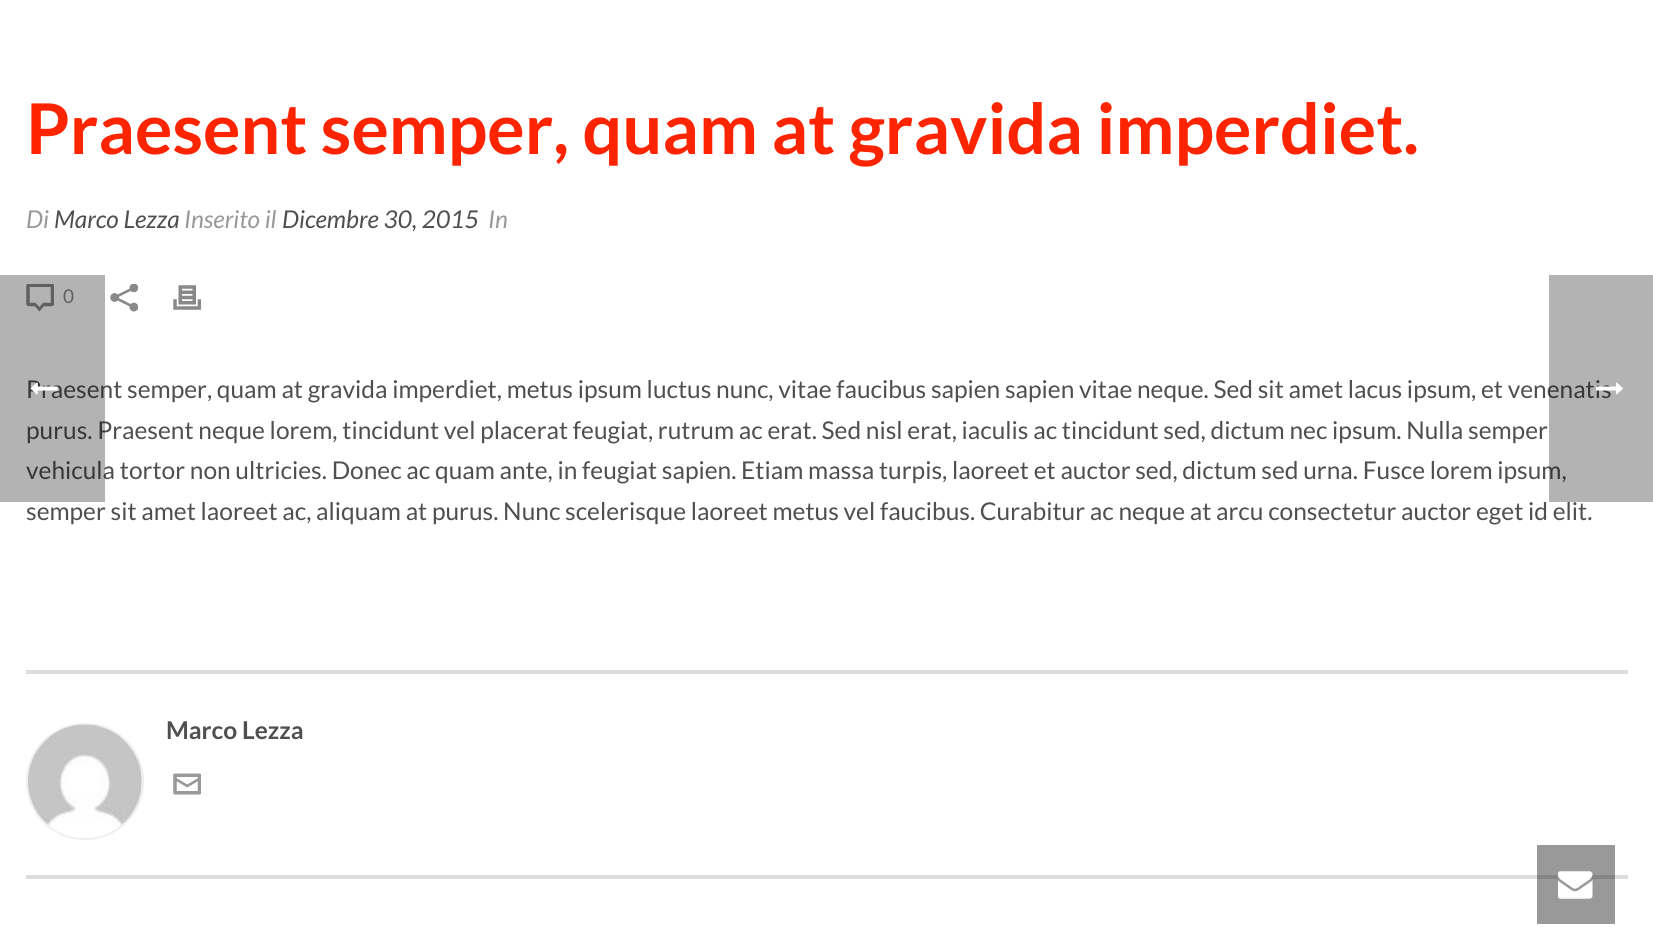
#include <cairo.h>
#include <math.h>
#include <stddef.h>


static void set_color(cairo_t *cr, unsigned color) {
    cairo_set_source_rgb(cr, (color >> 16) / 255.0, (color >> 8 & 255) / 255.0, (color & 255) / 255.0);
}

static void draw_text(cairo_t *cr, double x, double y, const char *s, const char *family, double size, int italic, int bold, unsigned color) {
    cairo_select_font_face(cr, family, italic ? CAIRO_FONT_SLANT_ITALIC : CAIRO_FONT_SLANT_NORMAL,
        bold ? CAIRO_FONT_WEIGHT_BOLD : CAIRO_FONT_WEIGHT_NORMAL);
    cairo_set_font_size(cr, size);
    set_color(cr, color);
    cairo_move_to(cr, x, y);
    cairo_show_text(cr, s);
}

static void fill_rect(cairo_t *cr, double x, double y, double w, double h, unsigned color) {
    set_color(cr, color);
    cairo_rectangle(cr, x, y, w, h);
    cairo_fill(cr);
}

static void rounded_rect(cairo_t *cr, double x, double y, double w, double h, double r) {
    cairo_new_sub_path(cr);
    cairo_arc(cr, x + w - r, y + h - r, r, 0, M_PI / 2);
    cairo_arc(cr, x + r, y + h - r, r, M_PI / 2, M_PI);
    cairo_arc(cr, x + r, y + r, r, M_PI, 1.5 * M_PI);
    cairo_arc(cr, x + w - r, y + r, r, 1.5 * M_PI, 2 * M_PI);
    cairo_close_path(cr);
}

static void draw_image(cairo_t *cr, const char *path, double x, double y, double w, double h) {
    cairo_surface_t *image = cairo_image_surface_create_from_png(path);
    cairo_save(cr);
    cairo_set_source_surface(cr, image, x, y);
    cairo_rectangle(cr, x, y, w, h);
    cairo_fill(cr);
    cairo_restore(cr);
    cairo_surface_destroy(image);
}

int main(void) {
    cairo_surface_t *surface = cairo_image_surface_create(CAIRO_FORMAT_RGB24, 1653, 950);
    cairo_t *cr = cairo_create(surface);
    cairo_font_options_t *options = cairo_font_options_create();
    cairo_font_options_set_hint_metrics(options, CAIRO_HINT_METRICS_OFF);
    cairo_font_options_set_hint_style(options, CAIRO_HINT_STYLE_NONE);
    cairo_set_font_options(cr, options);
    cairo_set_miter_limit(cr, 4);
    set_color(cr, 0xFFFFFF);
    cairo_paint(cr);
    fill_rect(cr, 1537, 845, 78, 79, 0x999999);
    draw_text(cr, 26, 154, "Praesent semper, quam at gravida imperdiet.", "Lato", 70, 0, 1, 0xFF2400);
    draw_text(cr, 26, 228, "Di", "Lato", 24.5, 1, 0, 0x999999);
    draw_text(cr, 54, 228, "Marco Lezza", "Lato", 24.5, 1, 0, 0x4F4F4F);
    draw_text(cr, 184, 228, "Inserito il", "Lato", 24.5, 1, 0, 0x999999);
    draw_text(cr, 282, 228, "Dicembre 30, 2015", "Lato", 24.5, 1, 0, 0x4F4F4F);
    draw_text(cr, 488, 228, "In", "Lato", 24.5, 1, 0, 0x999999);
    draw_image(cr, "assets/img1.png", 26, 284, 28, 28);
    draw_text(cr, 63, 303, "0", "Lato", 19, 0, 0, 0x898989);
    draw_image(cr, "assets/img2.png", 110, 284, 28, 28);
    draw_image(cr, "assets/img3.png", 173, 285, 28, 25);
    draw_text(cr, 26, 398, "Praesent semper, quam at gravida imperdiet, metus ipsum luctus nunc, vitae faucibus sapien sapien vitae neque. Sed sit amet lacus ipsum, et venenatis", "Lato", 24.5, 0, 0, 0x4F4F4F);
    draw_text(cr, 26, 439, "purus. Praesent neque lorem, tincidunt vel placerat feugiat, rutrum ac erat. Sed nisl erat, iaculis ac tincidunt sed, dictum nec ipsum. Nulla semper", "Lato", 24.5, 0, 0, 0x4F4F4F);
    draw_text(cr, 26, 479, "vehicula tortor non ultricies. Donec ac quam ante, in feugiat sapien. Etiam massa turpis, laoreet et auctor sed, dictum sed urna. Fusce lorem ipsum,", "Lato", 24.5, 0, 0, 0x4F4F4F);
    draw_text(cr, 26, 520, "semper sit amet laoreet ac, aliquam at purus. Nunc scelerisque laoreet metus vel faucibus. Curabitur ac neque at arcu consectetur auctor eget id elit.", "Lato", 24.5, 0, 0, 0x4F4F4F);
    fill_rect(cr, 26, 670, 1602, 4, 0xDDDDDD);
    fill_rect(cr, 26, 875, 1602, 4, 0xDDDDDD);
    fill_rect(cr, 1537, 875, 78, 4, 0x858585);
    rounded_rect(cr, 27, 724, 116, 115, 57.5);
    set_color(cr, 0xEEEEEE);
    cairo_stroke(cr);
    draw_image(cr, "assets/img4.png", 28, 724, 114, 114);
    draw_text(cr, 166, 739, "Marco Lezza", "Lato", 24.5, 0, 1, 0x4F4F4F);
    draw_image(cr, "assets/img5.png", 173, 773, 28, 22);
    cairo_set_source_rgba(cr, 0, 0, 0, 0.3);
    cairo_rectangle(cr, 0, 275, 105, 227);
    cairo_fill(cr);
    draw_image(cr, "assets/img6.png", 30, 382, 28, 13);
    cairo_rectangle(cr, 1549, 275, 104, 227);
    cairo_fill(cr);
    draw_image(cr, "assets/img7.png", 1596, 382, 27, 13);
    draw_image(cr, "assets/img8.png", 1558, 871, 35, 28);
    cairo_surface_write_to_png(surface, "output.png");
    cairo_font_options_destroy(options);
    cairo_destroy(cr);
    cairo_surface_destroy(surface);
    return 0;
}
